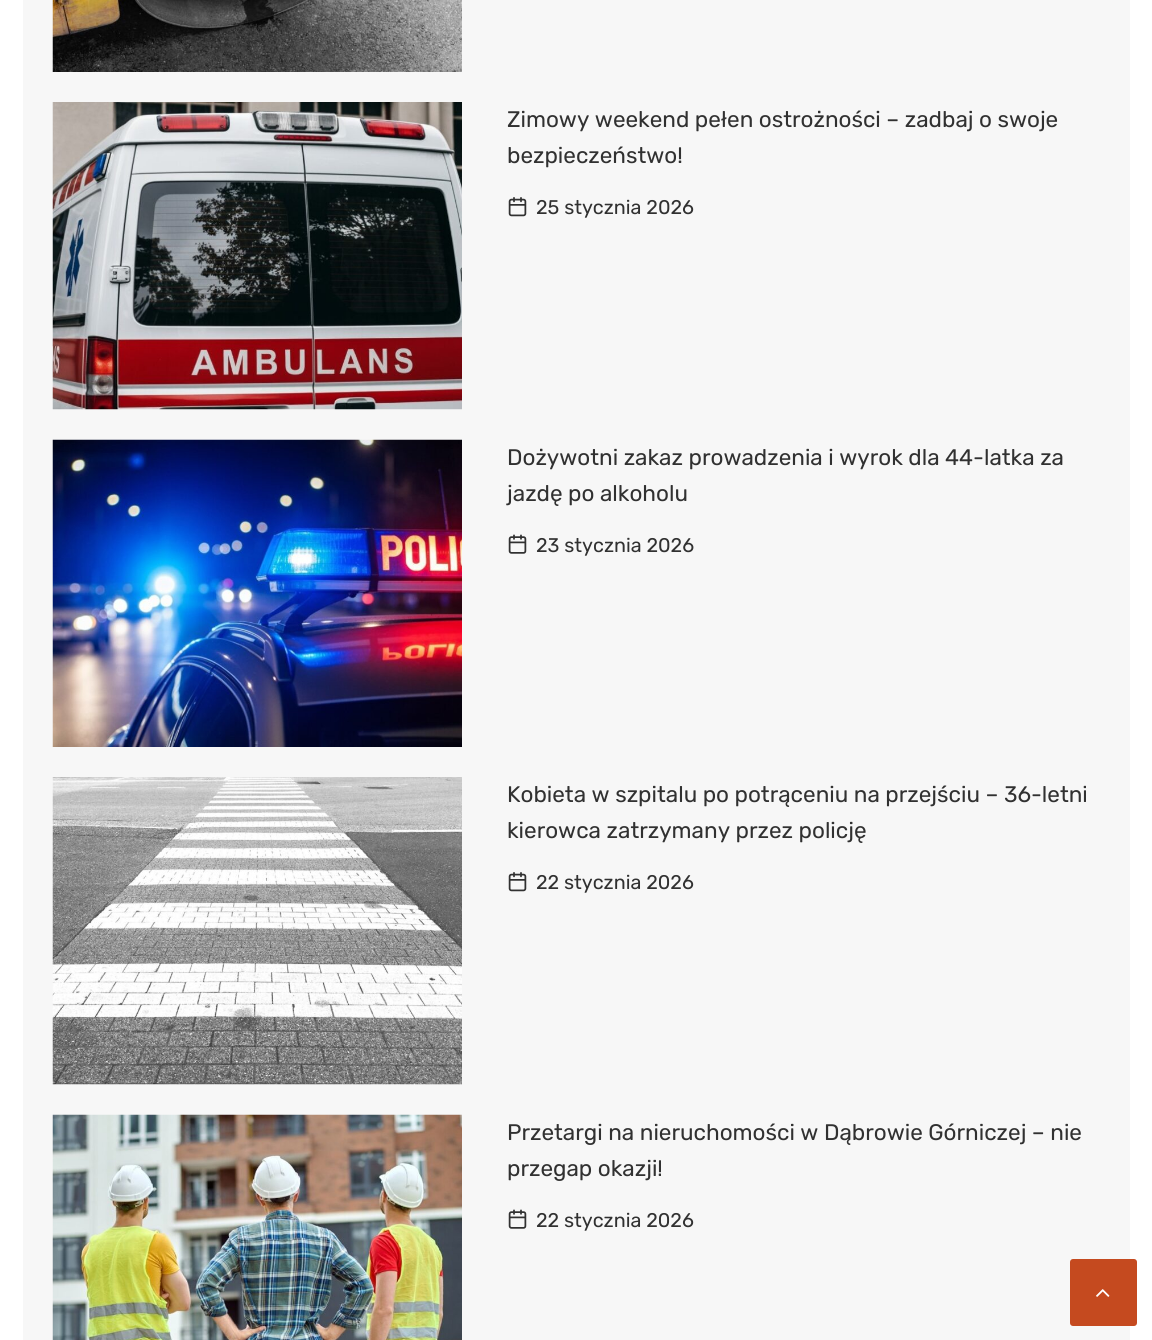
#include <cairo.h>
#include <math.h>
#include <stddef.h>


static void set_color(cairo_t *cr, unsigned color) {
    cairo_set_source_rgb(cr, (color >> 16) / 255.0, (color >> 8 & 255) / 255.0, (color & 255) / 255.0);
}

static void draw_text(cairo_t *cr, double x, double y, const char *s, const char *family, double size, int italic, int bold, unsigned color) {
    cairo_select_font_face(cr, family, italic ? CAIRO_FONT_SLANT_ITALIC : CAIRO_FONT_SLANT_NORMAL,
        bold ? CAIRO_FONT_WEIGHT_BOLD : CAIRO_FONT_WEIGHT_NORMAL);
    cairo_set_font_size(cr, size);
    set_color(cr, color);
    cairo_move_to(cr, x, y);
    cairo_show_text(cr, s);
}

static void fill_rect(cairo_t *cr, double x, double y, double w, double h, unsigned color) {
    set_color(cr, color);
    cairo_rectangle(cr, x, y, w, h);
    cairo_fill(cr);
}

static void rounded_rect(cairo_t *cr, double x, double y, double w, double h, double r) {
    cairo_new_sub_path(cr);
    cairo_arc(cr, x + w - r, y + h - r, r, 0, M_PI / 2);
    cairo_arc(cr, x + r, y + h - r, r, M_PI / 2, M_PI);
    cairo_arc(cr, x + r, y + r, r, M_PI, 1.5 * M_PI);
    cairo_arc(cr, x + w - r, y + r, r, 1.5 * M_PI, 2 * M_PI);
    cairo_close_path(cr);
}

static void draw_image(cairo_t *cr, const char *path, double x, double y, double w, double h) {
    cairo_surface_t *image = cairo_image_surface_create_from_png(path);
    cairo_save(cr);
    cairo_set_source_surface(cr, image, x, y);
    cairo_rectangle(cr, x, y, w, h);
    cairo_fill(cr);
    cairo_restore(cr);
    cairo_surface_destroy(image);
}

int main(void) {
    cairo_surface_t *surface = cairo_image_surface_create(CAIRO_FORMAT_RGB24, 1152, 1340);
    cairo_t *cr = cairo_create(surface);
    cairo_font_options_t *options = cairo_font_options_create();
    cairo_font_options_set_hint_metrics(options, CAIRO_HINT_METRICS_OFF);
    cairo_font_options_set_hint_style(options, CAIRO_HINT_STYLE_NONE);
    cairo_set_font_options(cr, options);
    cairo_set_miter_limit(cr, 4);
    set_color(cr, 0xFFFFFF);
    cairo_paint(cr);
    fill_rect(cr, 23, 0, 1107, 1340, 0xF7F7F7);
    draw_image(cr, "assets/img1.png", 52, 0, 410, 72);
    draw_image(cr, "assets/img2.png", 52, 102, 410, 308);
    draw_text(cr, 507, 127, "Zimowy weekend pełen ostrożności – zadbaj o swoje", "Rubik", 22.5, 0, 0, 0x313131);
    draw_text(cr, 507, 163, "bezpieczeństwo!", "Rubik", 22.5, 0, 0, 0x313131);
    draw_image(cr, "assets/img3.png", 508, 197, 19, 20);
    draw_text(cr, 536, 214, "25 stycznia 2026", "Rubik", 19.75, 0, 0, 0x313131);
    draw_image(cr, "assets/img4.png", 52, 439, 410, 308);
    draw_text(cr, 507, 465, "Dożywotni zakaz prowadzenia i wyrok dla 44-latka za", "Rubik", 22.5, 0, 0, 0x313131);
    draw_text(cr, 507, 501, "jazdę po alkoholu", "Rubik", 22.5, 0, 0, 0x313131);
    draw_image(cr, "assets/img5.png", 508, 534, 19, 20);
    draw_text(cr, 536, 552, "23 stycznia 2026", "Rubik", 19.75, 0, 0, 0x313131);
    draw_image(cr, "assets/img6.png", 52, 777, 410, 308);
    draw_text(cr, 507, 802, "Kobieta w szpitalu po potrąceniu na przejściu – 36-letni", "Rubik", 22.5, 0, 0, 0x313131);
    draw_text(cr, 507, 838, "kierowca zatrzymany przez policję", "Rubik", 22.5, 0, 0, 0x313131);
    draw_image(cr, "assets/img3.png", 508, 872, 19, 20);
    draw_text(cr, 536, 889, "22 stycznia 2026", "Rubik", 19.75, 0, 0, 0x313131);
    draw_image(cr, "assets/img7.png", 52, 1114, 410, 226);
    draw_text(cr, 507, 1140, "Przetargi na nieruchomości w Dąbrowie Górniczej – nie", "Rubik", 22.5, 0, 0, 0x313131);
    draw_text(cr, 507, 1176, "przegap okazji!", "Rubik", 22.5, 0, 0, 0x313131);
    draw_image(cr, "assets/img5.png", 508, 1209, 19, 20);
    draw_text(cr, 536, 1227, "22 stycznia 2026", "Rubik", 19.75, 0, 0, 0x313131);
    set_color(cr, 0xC54A1F);
    rounded_rect(cr, 1070, 1259, 67, 67, 3);
    cairo_fill(cr);
    draw_image(cr, "assets/img8.png", 1096, 1289, 14, 8);
    cairo_surface_write_to_png(surface, "output.png");
    cairo_font_options_destroy(options);
    cairo_destroy(cr);
    cairo_surface_destroy(surface);
    return 0;
}
